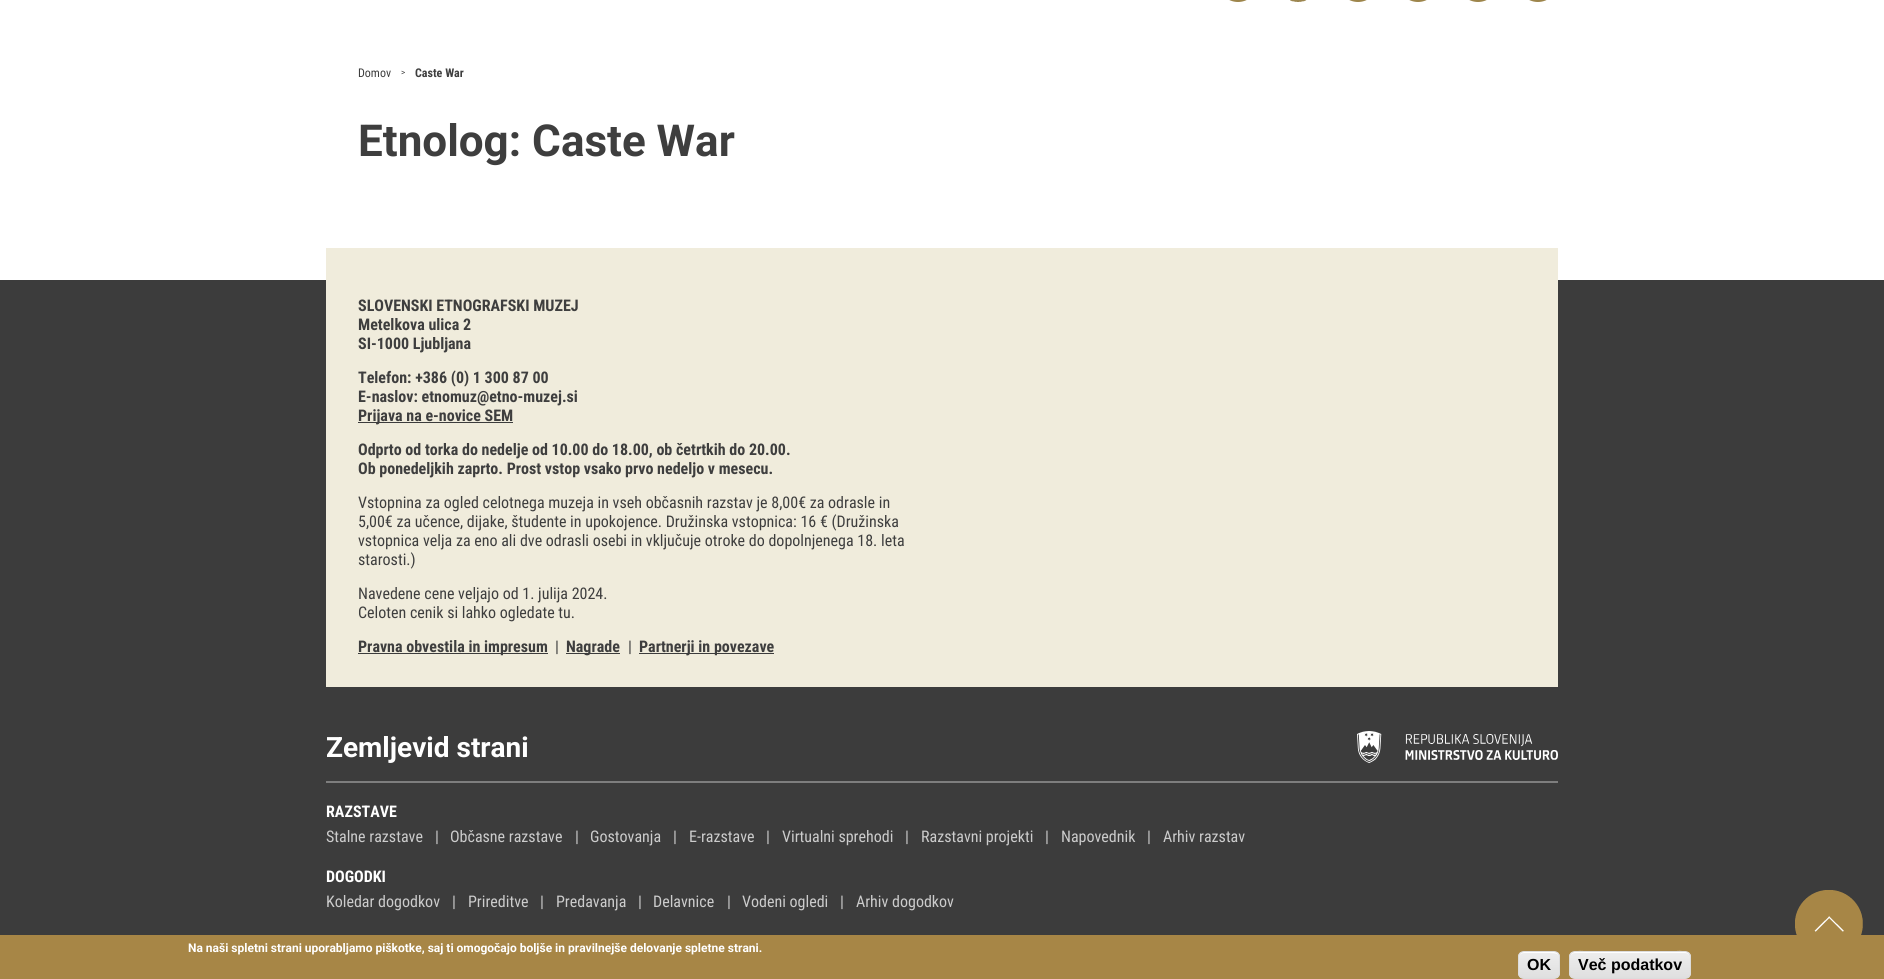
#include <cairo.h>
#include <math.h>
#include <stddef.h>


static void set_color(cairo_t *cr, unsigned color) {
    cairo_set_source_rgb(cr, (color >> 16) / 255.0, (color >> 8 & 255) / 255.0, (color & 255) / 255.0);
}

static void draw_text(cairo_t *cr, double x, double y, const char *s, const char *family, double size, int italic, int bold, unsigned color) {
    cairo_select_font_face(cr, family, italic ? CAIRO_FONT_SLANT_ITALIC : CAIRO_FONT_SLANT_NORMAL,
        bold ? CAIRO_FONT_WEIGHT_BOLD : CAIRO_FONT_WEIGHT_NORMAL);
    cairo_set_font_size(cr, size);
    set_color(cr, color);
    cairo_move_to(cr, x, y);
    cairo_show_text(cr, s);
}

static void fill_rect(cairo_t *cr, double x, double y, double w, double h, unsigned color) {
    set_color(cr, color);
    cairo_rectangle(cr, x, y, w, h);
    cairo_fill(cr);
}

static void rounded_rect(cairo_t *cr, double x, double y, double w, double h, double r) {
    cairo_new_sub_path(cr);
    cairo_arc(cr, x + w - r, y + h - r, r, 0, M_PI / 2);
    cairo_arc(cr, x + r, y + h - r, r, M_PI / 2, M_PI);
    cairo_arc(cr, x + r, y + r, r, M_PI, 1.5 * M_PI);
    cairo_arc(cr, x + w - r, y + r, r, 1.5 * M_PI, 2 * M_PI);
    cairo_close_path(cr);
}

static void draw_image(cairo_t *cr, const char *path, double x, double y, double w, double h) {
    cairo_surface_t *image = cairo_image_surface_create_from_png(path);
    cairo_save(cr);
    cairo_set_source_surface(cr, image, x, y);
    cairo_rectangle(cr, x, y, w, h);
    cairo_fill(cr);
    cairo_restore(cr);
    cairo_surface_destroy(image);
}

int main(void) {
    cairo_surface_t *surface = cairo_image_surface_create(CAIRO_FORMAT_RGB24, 1884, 979);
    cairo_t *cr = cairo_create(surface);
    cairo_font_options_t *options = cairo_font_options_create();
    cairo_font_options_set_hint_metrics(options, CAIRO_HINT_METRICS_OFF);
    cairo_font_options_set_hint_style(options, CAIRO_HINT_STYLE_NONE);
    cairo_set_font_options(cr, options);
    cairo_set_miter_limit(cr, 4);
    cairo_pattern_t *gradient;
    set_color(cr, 0xFFFFFF);
    cairo_paint(cr);
    draw_image(cr, "assets/img1.png", 1229, 0, 18, 2);
    draw_image(cr, "assets/img2.png", 1290, 0, 17, 2);
    draw_image(cr, "assets/img1.png", 1349, 0, 18, 2);
    draw_image(cr, "assets/img3.png", 1409, 0, 18, 2);
    draw_image(cr, "assets/img1.png", 1469, 0, 18, 2);
    draw_image(cr, "assets/img4.png", 1529, 0, 18, 2);
    draw_text(cr, 358, 77, "Domov", "Roboto Condensed", 12, 0, 0, 0x3E3E3E);
    draw_text(cr, 401, 75, ">", "Roboto", 8, 0, 0, 0x3E3E3E);
    draw_text(cr, 415, 77, "Caste War", "Roboto Condensed", 12, 0, 1, 0x3E3E3E);
    draw_text(cr, 358, 156, "Etnolog: Caste War", "Roboto", 44, 0, 1, 0x3E3E3E);
    fill_rect(cr, 326, 248, 1232, 32, 0xF0ECDC);
    fill_rect(cr, 0, 280, 1884, 655, 0x3C3C3C);
    fill_rect(cr, 326, 280, 1232, 407, 0xF0ECDC);
    draw_text(cr, 358, 311, "SLOVENSKI ETNOGRAFSKI MUZEJ", "Roboto Condensed", 16, 0, 1, 0x3E3E3E);
    draw_text(cr, 358, 330, "Metelkova ulica 2", "Roboto Condensed", 16, 0, 1, 0x3E3E3E);
    draw_text(cr, 358, 349, "SI-1000 Ljubljana", "Roboto Condensed", 16, 0, 1, 0x3E3E3E);
    draw_text(cr, 358, 383, "Telefon: +386 (0) 1 300 87 00", "Roboto Condensed", 16, 0, 1, 0x3E3E3E);
    draw_text(cr, 358, 402, "E-naslov: etnomuz@etno-muzej.si", "Roboto Condensed", 16, 0, 1, 0x3E3E3E);
    fill_rect(cr, 358, 422, 155, 1, 0x3C3C3C);
    draw_text(cr, 358, 421, "Prijava na e-novice SEM", "Roboto Condensed", 16, 0, 1, 0x3E3E3E);
    draw_text(cr, 358, 455, "Odprto od torka do nedelje od 10.00 do 18.00, ob četrtkih do 20.00.", "Roboto Condensed", 16, 0, 1, 0x3E3E3E);
    draw_text(cr, 358, 474, "Ob ponedeljkih zaprto. Prost vstop vsako prvo nedeljo v mesecu.", "Roboto Condensed", 16, 0, 1, 0x3E3E3E);
    draw_text(cr, 358, 508, "Vstopnina za ogled celotnega muzeja in vseh občasnih razstav je 8,00€ za odrasle in", "Roboto Condensed", 16, 0, 0, 0x3E3E3E);
    draw_text(cr, 358, 527, "5,00€ za učence, dijake, študente in upokojence. Družinska vstopnica: 16 € (Družinska", "Roboto Condensed", 16, 0, 0, 0x3E3E3E);
    draw_text(cr, 358, 546, "vstopnica velja za eno ali dve odrasli osebi in vključuje otroke do dopolnjenega 18. leta", "Roboto Condensed", 16, 0, 0, 0x3E3E3E);
    draw_text(cr, 358, 565, "starosti.)", "Roboto Condensed", 16, 0, 0, 0x3E3E3E);
    draw_text(cr, 358, 599, "Navedene cene veljajo od 1. julija 2024.", "Roboto Condensed", 16, 0, 0, 0x3E3E3E);
    draw_text(cr, 358, 618, "Celoten cenik si lahko ogledate tu.", "Roboto Condensed", 16, 0, 0, 0x3E3E3E);
    fill_rect(cr, 358, 653, 190, 1, 0x3C3C3C);
    draw_text(cr, 358, 652, "Pravna obvestila in impresum", "Roboto Condensed", 16, 0, 1, 0x3E3E3E);
    draw_text(cr, 555, 652, "|", "Roboto Condensed", 16, 0, 0, 0x3E3E3E);
    fill_rect(cr, 566, 653, 54, 1, 0x3C3C3C);
    draw_text(cr, 566, 652, "Nagrade", "Roboto Condensed", 16, 0, 1, 0x3E3E3E);
    draw_text(cr, 628, 652, "|", "Roboto Condensed", 16, 0, 0, 0x3E3E3E);
    fill_rect(cr, 639, 653, 135, 1, 0x3C3C3C);
    draw_text(cr, 639, 652, "Partnerji in povezave", "Roboto Condensed", 16, 0, 1, 0x3E3E3E);
    fill_rect(cr, 326, 781, 1232, 2, 0x7E7E7E);
    draw_text(cr, 326, 757, "Zemljevid strani", "Roboto", 28, 0, 1, 0xFFFFFF);
    draw_image(cr, "assets/img5.png", 1357, 731, 201, 32);
    draw_text(cr, 326, 817, "RAZSTAVE", "Roboto Condensed", 16, 0, 1, 0xFFFFFF);
    draw_text(cr, 326, 842, "Stalne razstave", "Roboto Condensed", 16, 0, 0, 0xCCCCCC);
    draw_text(cr, 435, 842, "|", "Roboto", 16, 0, 0, 0xCCCCCC);
    draw_text(cr, 450, 842, "Občasne razstave", "Roboto Condensed", 16, 0, 0, 0xCCCCCC);
    draw_text(cr, 575, 842, "|", "Roboto", 16, 0, 0, 0xCCCCCC);
    draw_text(cr, 590, 842, "Gostovanja", "Roboto Condensed", 16, 0, 0, 0xCCCCCC);
    draw_text(cr, 673, 842, "|", "Roboto", 16, 0, 0, 0xCCCCCC);
    draw_text(cr, 689, 842, "E-razstave", "Roboto Condensed", 16, 0, 0, 0xCCCCCC);
    draw_text(cr, 766, 842, "|", "Roboto", 16, 0, 0, 0xCCCCCC);
    draw_text(cr, 782, 842, "Virtualni sprehodi", "Roboto Condensed", 16, 0, 0, 0xCCCCCC);
    draw_text(cr, 905, 842, "|", "Roboto", 16, 0, 0, 0xCCCCCC);
    draw_text(cr, 921, 842, "Razstavni projekti", "Roboto Condensed", 16, 0, 0, 0xCCCCCC);
    draw_text(cr, 1045, 842, "|", "Roboto", 16, 0, 0, 0xCCCCCC);
    draw_text(cr, 1061, 842, "Napovednik", "Roboto Condensed", 16, 0, 0, 0xCCCCCC);
    draw_text(cr, 1147, 842, "|", "Roboto", 16, 0, 0, 0xCCCCCC);
    draw_text(cr, 1163, 842, "Arhiv razstav", "Roboto Condensed", 16, 0, 0, 0xCCCCCC);
    draw_text(cr, 326, 882, "DOGODKI", "Roboto Condensed", 16, 0, 1, 0xFFFFFF);
    draw_text(cr, 326, 907, "Koledar dogodkov", "Roboto Condensed", 16, 0, 0, 0xCCCCCC);
    draw_text(cr, 452, 907, "|", "Roboto", 16, 0, 0, 0xCCCCCC);
    draw_text(cr, 468, 907, "Prireditve", "Roboto Condensed", 16, 0, 0, 0xCCCCCC);
    draw_text(cr, 540, 907, "|", "Roboto", 16, 0, 0, 0xCCCCCC);
    draw_text(cr, 556, 907, "Predavanja", "Roboto Condensed", 16, 0, 0, 0xCCCCCC);
    draw_text(cr, 638, 907, "|", "Roboto", 16, 0, 0, 0xCCCCCC);
    draw_text(cr, 653, 907, "Delavnice", "Roboto Condensed", 16, 0, 0, 0xCCCCCC);
    draw_text(cr, 727, 907, "|", "Roboto", 16, 0, 0, 0xCCCCCC);
    draw_text(cr, 742, 907, "Vodeni ogledi", "Roboto Condensed", 16, 0, 0, 0xCCCCCC);
    draw_text(cr, 840, 907, "|", "Roboto", 16, 0, 0, 0xCCCCCC);
    draw_text(cr, 856, 907, "Arhiv dogodkov", "Roboto Condensed", 16, 0, 0, 0xCCCCCC);
    draw_image(cr, "assets/img6.png", 1795, 890, 68, 45);
    fill_rect(cr, 0, 935, 1884, 44, 0xA78646);
    draw_text(cr, 188, 952, "Na naši spletni strani uporabljamo piškotke, saj ti omogočajo boljše in pravilnejše delovanje spletne strani.", "Roboto", 12, 0, 1, 0xFFFFFF);
    cairo_save(cr);
    rounded_rect(cr, 1518, 951, 42, 28, 6);
    cairo_clip(cr);
    gradient = cairo_pattern_create_linear(1519, 952, 1519, 978);
    cairo_pattern_add_color_stop_rgba(gradient, 0.05, 0.929, 0.929, 0.929, 1);
    cairo_pattern_add_color_stop_rgba(gradient, 1, 0.875, 0.875, 0.875, 1);
    cairo_set_source(cr, gradient);
    cairo_pattern_destroy(gradient);
    cairo_rectangle(cr, 1518, 952, 42, 26);
    cairo_fill(cr);
    cairo_restore(cr);
    cairo_new_path(cr);
    cairo_move_to(cr, 1524, 953);
    cairo_line_to(cr, 1549, 953);
    cairo_curve_to(cr, 1556, 953, 1559, 954, 1559, 957);
    cairo_curve_to(cr, 1559, 951, 1553, 952, 1549, 952);
    cairo_line_to(cr, 1529, 952);
    cairo_curve_to(cr, 1525, 952, 1519, 951, 1519, 957);
    cairo_curve_to(cr, 1519, 955, 1521, 953, 1524, 953);
    cairo_close_path(cr);
    cairo_fill(cr);
    rounded_rect(cr, 1518.5, 951.5, 41, 27, 5.5);
    set_color(cr, 0xDCDCDC);
    cairo_set_line_width(cr, 1);
    cairo_stroke(cr);
    draw_text(cr, 1527, 970, "OK", "Liberation Sans", 16, 0, 1, 0x000000);
    cairo_save(cr);
    rounded_rect(cr, 1569, 951, 122, 28, 6);
    cairo_clip(cr);
    gradient = cairo_pattern_create_linear(1570, 952, 1570, 978);
    cairo_pattern_add_color_stop_rgba(gradient, 0.05, 0.929, 0.929, 0.929, 1);
    cairo_pattern_add_color_stop_rgba(gradient, 1, 0.875, 0.875, 0.875, 1);
    cairo_set_source(cr, gradient);
    cairo_pattern_destroy(gradient);
    cairo_rectangle(cr, 1569, 952, 122, 26);
    cairo_fill(cr);
    cairo_restore(cr);
    set_color(cr, 0xFFFFFF);
    cairo_new_path(cr);
    cairo_move_to(cr, 1575, 953);
    cairo_line_to(cr, 1685, 953);
    cairo_curve_to(cr, 1688, 953, 1690, 955, 1690, 958);
    cairo_curve_to(cr, 1690, 947, 1671, 952, 1667, 952);
    cairo_line_to(cr, 1593, 952);
    cairo_curve_to(cr, 1589, 952, 1570, 947, 1570, 958);
    cairo_curve_to(cr, 1570, 955, 1572, 953, 1575, 953);
    cairo_close_path(cr);
    cairo_fill(cr);
    rounded_rect(cr, 1569.5, 951.5, 121, 27, 5.5);
    set_color(cr, 0xDCDCDC);
    cairo_stroke(cr);
    draw_text(cr, 1578, 970, "Več podatkov", "Liberation Sans", 16, 0, 1, 0x000000);
    cairo_surface_write_to_png(surface, "output.png");
    cairo_font_options_destroy(options);
    cairo_destroy(cr);
    cairo_surface_destroy(surface);
    return 0;
}
